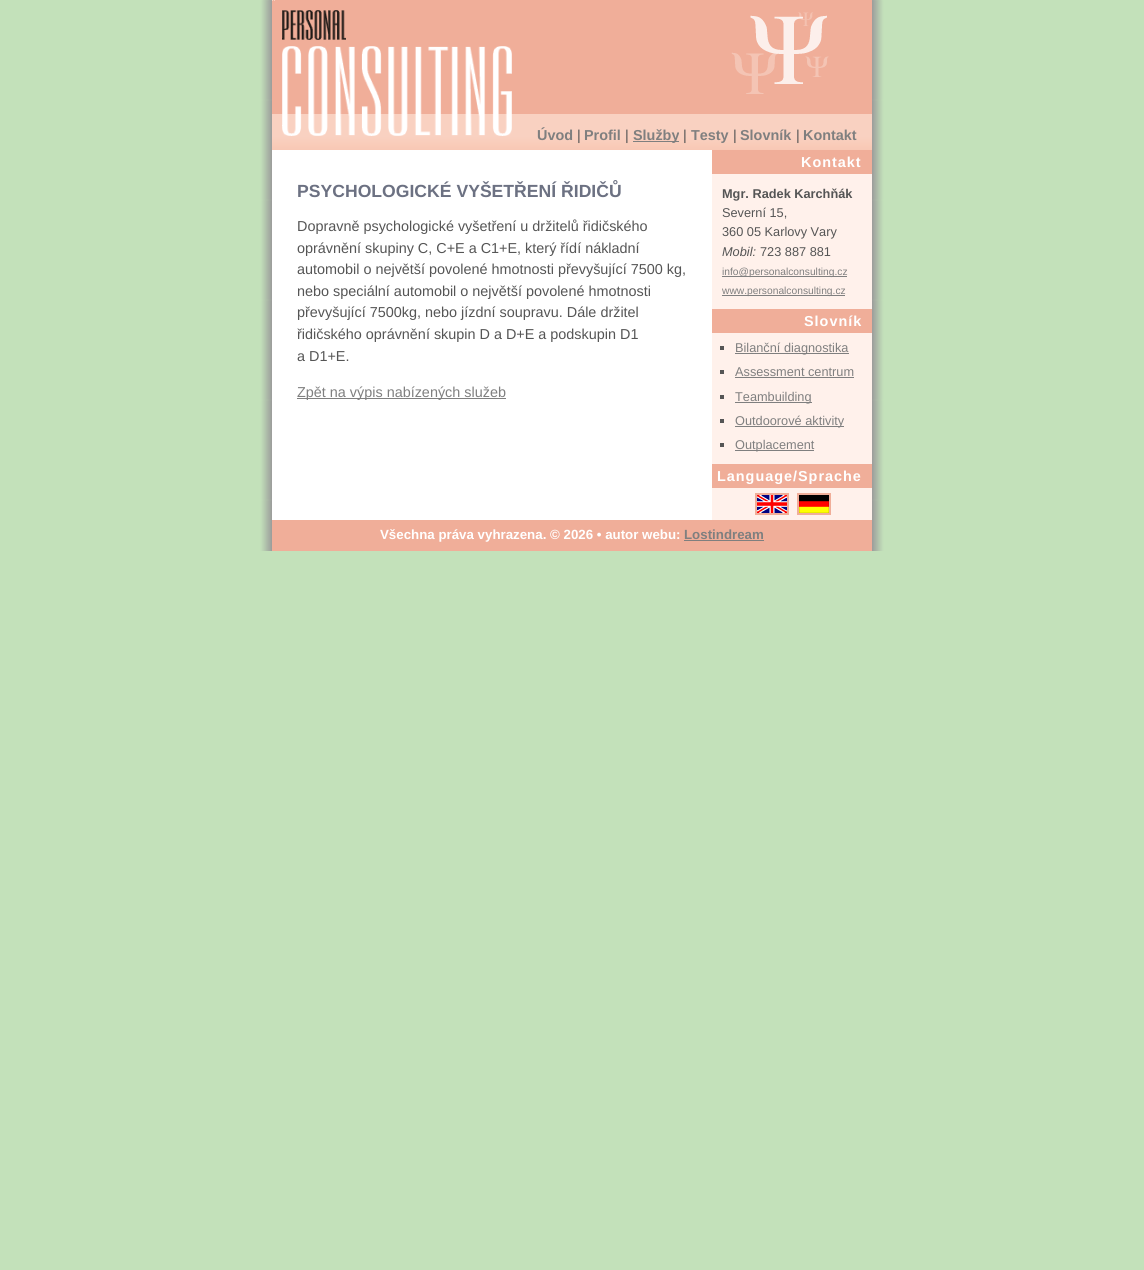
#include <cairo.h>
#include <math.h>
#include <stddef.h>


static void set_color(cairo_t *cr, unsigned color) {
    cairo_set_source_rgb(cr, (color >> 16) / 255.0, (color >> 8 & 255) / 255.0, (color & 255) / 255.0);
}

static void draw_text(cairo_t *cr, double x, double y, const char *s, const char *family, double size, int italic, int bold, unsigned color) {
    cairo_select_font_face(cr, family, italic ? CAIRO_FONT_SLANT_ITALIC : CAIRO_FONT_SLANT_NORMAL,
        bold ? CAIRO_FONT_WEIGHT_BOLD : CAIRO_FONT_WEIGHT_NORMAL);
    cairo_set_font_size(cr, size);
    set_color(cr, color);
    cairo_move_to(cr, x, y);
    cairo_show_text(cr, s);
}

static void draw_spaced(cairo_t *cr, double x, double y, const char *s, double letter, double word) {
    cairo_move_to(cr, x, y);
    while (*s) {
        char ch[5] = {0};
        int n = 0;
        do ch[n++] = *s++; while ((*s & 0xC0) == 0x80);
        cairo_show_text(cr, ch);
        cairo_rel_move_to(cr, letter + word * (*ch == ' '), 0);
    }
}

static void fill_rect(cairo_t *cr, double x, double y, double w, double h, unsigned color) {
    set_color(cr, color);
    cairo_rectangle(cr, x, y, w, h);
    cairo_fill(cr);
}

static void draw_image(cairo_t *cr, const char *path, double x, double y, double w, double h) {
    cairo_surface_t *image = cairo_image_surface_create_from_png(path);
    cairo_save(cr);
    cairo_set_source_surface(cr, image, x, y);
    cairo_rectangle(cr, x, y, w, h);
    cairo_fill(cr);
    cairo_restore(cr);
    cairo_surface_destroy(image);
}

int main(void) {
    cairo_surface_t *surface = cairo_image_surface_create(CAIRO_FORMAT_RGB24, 1144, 1270);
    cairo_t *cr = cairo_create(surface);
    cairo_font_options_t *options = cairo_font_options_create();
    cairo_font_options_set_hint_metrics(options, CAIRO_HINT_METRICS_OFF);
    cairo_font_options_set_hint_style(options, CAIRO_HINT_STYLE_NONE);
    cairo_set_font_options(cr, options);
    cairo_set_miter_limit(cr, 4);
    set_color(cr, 0xC3E1BA);
    cairo_paint(cr);
    draw_image(cr, "assets/img1.png", 252, 0, 640, 551);
    draw_image(cr, "assets/img2.png", 272, 0, 600, 150);
    draw_image(cr, "assets/img3.png", 282, 10, 230, 126);
    draw_image(cr, "assets/img4.png", 283, 15, 138, 16);
    draw_text(cr, 537, 140, "Úvod", "Liberation Sans", 14.4, 0, 1, 0x7F7F7F);
    draw_text(cr, 577, 140, "|", "Liberation Sans", 14.4, 0, 0, 0x555555);
    draw_text(cr, 584, 140, "Profil", "Liberation Sans", 14.4, 0, 1, 0x7F7F7F);
    draw_text(cr, 625, 140, "|", "Liberation Sans", 14.4, 0, 0, 0x555555);
    fill_rect(cr, 633, 141, 46, 1, 0x7F7F7F);
    draw_text(cr, 633, 140, "Služby", "Liberation Sans", 14.4, 0, 1, 0x7F7F7F);
    draw_text(cr, 683, 140, "|", "Liberation Sans", 14.4, 0, 0, 0x555555);
    draw_text(cr, 691, 140, "Testy", "Liberation Sans", 14.4, 0, 1, 0x7F7F7F);
    draw_text(cr, 733, 140, "|", "Liberation Sans", 14.4, 0, 0, 0x555555);
    draw_text(cr, 740, 140, "Slovník", "Liberation Sans", 14.4, 0, 1, 0x7F7F7F);
    draw_text(cr, 796, 140, "|", "Liberation Sans", 14.4, 0, 0, 0x555555);
    draw_text(cr, 803, 140, "Kontakt", "Liberation Sans", 14.4, 0, 1, 0x7F7F7F);
    draw_text(cr, 297, 197, "PSYCHOLOGICKÉ VYŠETŘENÍ ŘIDIČŮ", "Liberation Sans", 17.6, 0, 1, 0x6C7182);
    draw_text(cr, 297, 231, "Dopravně psychologické vyšetření u držitelů řidičského", "Liberation Sans", 14.4, 0, 0, 0x555555);
    draw_text(cr, 297, 253, "oprávnění skupiny C, C+E a C1+E, který řídí nákladní", "Liberation Sans", 14.4, 0, 0, 0x555555);
    draw_text(cr, 297, 274, "automobil o největší povolené hmotnosti převyšující 7500 kg,", "Liberation Sans", 14.4, 0, 0, 0x555555);
    draw_text(cr, 297, 296, "nebo speciální automobil o největší povolené hmotnosti", "Liberation Sans", 14.4, 0, 0, 0x555555);
    draw_text(cr, 297, 317, "převyšující 7500kg, nebo jízdní soupravu. Dále držitel", "Liberation Sans", 14.4, 0, 0, 0x555555);
    draw_text(cr, 297, 339, "řidičského oprávnění skupin D a D+E a podskupin D1", "Liberation Sans", 14.4, 0, 0, 0x555555);
    draw_text(cr, 297, 361, "a D1+E.", "Liberation Sans", 14.4, 0, 0, 0x555555);
    fill_rect(cr, 297, 398, 209, 1, 0x7F7F7F);
    draw_text(cr, 297, 397, "Zpět na výpis nabízených služeb", "Liberation Sans", 14.4, 0, 0, 0x7F7F7F);
    fill_rect(cr, 712, 150, 160, 24, 0xF0AE99);
    cairo_select_font_face(cr, "Liberation Sans", CAIRO_FONT_SLANT_NORMAL, CAIRO_FONT_WEIGHT_BOLD);
    set_color(cr, 0xFFFFFF);
    draw_spaced(cr, 801, 167, "Kontakt", 1, 0);
    draw_text(cr, 722, 198, "Mgr. Radek Karchňák", "Liberation Sans", 12.75, 0, 1, 0x555555);
    draw_text(cr, 722, 217, "Severní 15,", "Liberation Sans", 12.75, 0, 0, 0x555555);
    draw_text(cr, 722, 236, "360 05 Karlovy Vary", "Liberation Sans", 12.75, 0, 0, 0x555555);
    draw_text(cr, 722, 256, "Mobil:", "Liberation Sans", 12.75, 1, 0, 0x555555);
    draw_text(cr, 760, 256, "723 887 881", "Liberation Sans", 12.75, 0, 0, 0x555555);
    fill_rect(cr, 722, 276, 125, 1, 0x7F7F7F);
    draw_text(cr, 722, 275, "info@personalconsulting.cz", "Liberation Sans", 10.25, 0, 0, 0x7F7F7F);
    fill_rect(cr, 722, 295, 123, 1, 0x7F7F7F);
    draw_text(cr, 722, 294, "www.personalconsulting.cz", "Liberation Sans", 10.25, 0, 0, 0x7F7F7F);
    fill_rect(cr, 712, 309, 160, 24, 0xF0AE99);
    cairo_select_font_face(cr, "Liberation Sans", CAIRO_FONT_SLANT_NORMAL, CAIRO_FONT_WEIGHT_BOLD);
    cairo_set_font_size(cr, 14.4);
    set_color(cr, 0xFFFFFF);
    draw_spaced(cr, 804, 326, "Slovník", 1, 0);
    fill_rect(cr, 720, 346, 4, 4, 0x555555);
    fill_rect(cr, 735, 353, 114, 1, 0x7F7F7F);
    draw_text(cr, 735, 352, "Bilanční diagnostika", "Liberation Sans", 12.75, 0, 0, 0x7F7F7F);
    fill_rect(cr, 720, 370, 4, 4, 0x555555);
    draw_text(cr, 735, 376, "Assessment centrum", "Liberation Sans", 12.75, 0, 0, 0x7F7F7F);
    fill_rect(cr, 735, 377, 119, 1, 0x7F7F7F);
    fill_rect(cr, 720, 395, 4, 4, 0x555555);
    fill_rect(cr, 735, 402, 77, 1, 0x7F7F7F);
    draw_text(cr, 735, 401, "Teambuilding", "Liberation Sans", 12.75, 0, 0, 0x7F7F7F);
    fill_rect(cr, 720, 419, 4, 4, 0x555555);
    fill_rect(cr, 735, 426, 109, 1, 0x7F7F7F);
    draw_text(cr, 735, 425, "Outdoorové aktivity", "Liberation Sans", 12.75, 0, 0, 0x7F7F7F);
    fill_rect(cr, 720, 443, 4, 4, 0x555555);
    fill_rect(cr, 735, 450, 79, 1, 0x7F7F7F);
    draw_text(cr, 735, 449, "Outplacement", "Liberation Sans", 12.75, 0, 0, 0x7F7F7F);
    fill_rect(cr, 712, 464, 160, 24, 0xF0AE99);
    cairo_select_font_face(cr, "Liberation Sans", CAIRO_FONT_SLANT_NORMAL, CAIRO_FONT_WEIGHT_BOLD);
    cairo_set_font_size(cr, 14.4);
    set_color(cr, 0xFFFFFF);
    draw_spaced(cr, 717, 481, "Language/Sprache", 1, 0);
    cairo_rectangle(cr, 756, 494, 32, 20);
    set_color(cr, 0xF0AE99);
    cairo_stroke(cr);
    draw_image(cr, "assets/img5.png", 757, 495, 30, 18);
    cairo_rectangle(cr, 798, 494, 32, 20);
    cairo_stroke(cr);
    draw_image(cr, "assets/img6.png", 799, 495, 30, 18);
    fill_rect(cr, 272, 520, 600, 31, 0xF0AE99);
    draw_text(cr, 380, 539, "Všechna práva vyhrazena. © 2026 • autor webu:", "Liberation Sans", 13.3, 0, 1, 0xFFFFFF);
    draw_text(cr, 684, 539, "Lostindream", "Liberation Sans", 13.3, 0, 1, 0x7F7F7F);
    fill_rect(cr, 684, 540, 80, 1, 0x7F7F7F);
    cairo_surface_write_to_png(surface, "output.png");
    cairo_font_options_destroy(options);
    cairo_destroy(cr);
    cairo_surface_destroy(surface);
    return 0;
}
